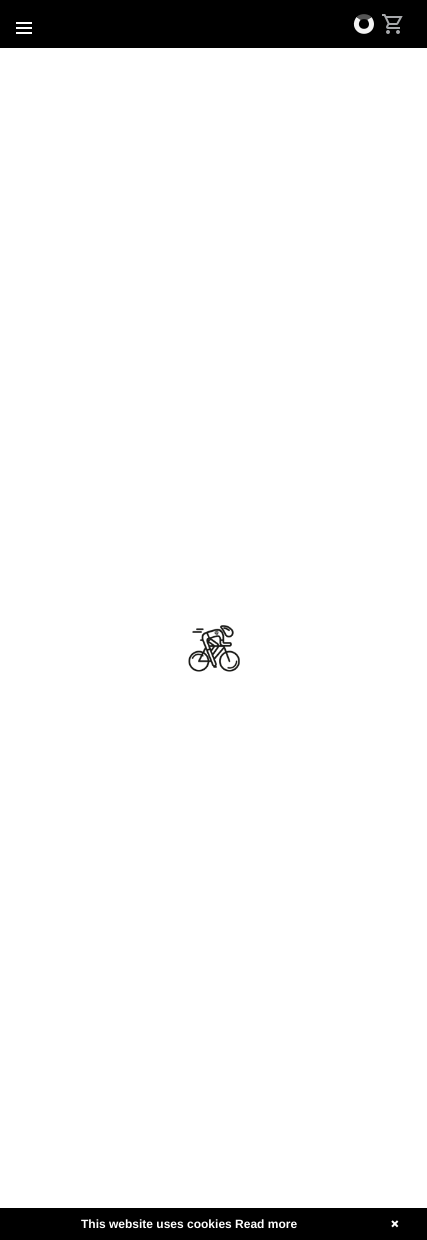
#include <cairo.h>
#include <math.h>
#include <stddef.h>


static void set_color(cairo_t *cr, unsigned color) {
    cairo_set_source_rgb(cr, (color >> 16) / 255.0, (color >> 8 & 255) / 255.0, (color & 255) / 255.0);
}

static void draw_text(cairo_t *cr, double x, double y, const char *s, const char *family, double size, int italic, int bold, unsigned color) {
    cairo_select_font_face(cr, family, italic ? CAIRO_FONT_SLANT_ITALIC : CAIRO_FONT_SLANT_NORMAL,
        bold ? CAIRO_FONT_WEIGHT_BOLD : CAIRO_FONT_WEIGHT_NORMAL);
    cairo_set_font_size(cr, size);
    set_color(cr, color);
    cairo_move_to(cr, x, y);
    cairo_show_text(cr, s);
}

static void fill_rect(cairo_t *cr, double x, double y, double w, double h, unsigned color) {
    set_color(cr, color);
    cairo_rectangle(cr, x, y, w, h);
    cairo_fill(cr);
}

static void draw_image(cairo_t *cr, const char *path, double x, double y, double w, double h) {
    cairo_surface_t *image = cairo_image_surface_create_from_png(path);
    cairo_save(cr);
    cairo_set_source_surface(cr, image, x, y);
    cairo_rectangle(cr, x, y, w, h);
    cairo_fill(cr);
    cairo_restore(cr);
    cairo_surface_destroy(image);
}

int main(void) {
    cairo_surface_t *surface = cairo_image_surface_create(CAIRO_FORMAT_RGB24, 427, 1240);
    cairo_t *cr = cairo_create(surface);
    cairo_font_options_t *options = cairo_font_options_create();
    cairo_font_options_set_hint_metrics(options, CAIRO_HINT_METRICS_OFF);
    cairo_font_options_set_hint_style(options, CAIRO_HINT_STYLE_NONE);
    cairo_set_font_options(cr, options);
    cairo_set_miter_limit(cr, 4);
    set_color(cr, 0xFFFFFF);
    cairo_paint(cr);
    fill_rect(cr, 0, 0, 427, 48, 0x000000);
    fill_rect(cr, 16, 22, 16, 2, 0xFFFFFF);
    fill_rect(cr, 16, 27, 16, 2, 0xFFFFFF);
    fill_rect(cr, 16, 32, 16, 2, 0xFFFFFF);
    cairo_new_path(cr);
    cairo_move_to(cr, 358.5, 18.5);
    cairo_curve_to(cr, 361.5, 16, 366.5, 16, 369.5, 18.5);
    set_color(cr, 0x555555);
    cairo_set_line_width(cr, 5);
    cairo_stroke(cr);
    cairo_new_path(cr);
    cairo_move_to(cr, 369.5, 18.5);
    cairo_curve_to(cr, 370.5, 20, 371.5, 22, 371.5, 24);
    cairo_curve_to(cr, 371.5, 33, 358.5, 34, 356.5, 25.5);
    cairo_curve_to(cr, 356, 23, 357, 20.5, 358.5, 18.5);
    set_color(cr, 0xF3F3F3);
    cairo_stroke(cr);
    draw_image(cr, "assets/img1.png", 382, 14, 21, 20);
    draw_image(cr, "assets/img2.png", 188, 625, 52, 47);
    fill_rect(cr, 0, 1208, 427, 32, 0x000000);
    draw_text(cr, 81, 1228, "This website uses cookies Read more", "Liberation Sans", 12, 0, 1, 0xFFFFFF);
    draw_image(cr, "assets/img3.png", 391, 1220, 8, 8);
    cairo_surface_write_to_png(surface, "output.png");
    cairo_font_options_destroy(options);
    cairo_destroy(cr);
    cairo_surface_destroy(surface);
    return 0;
}
